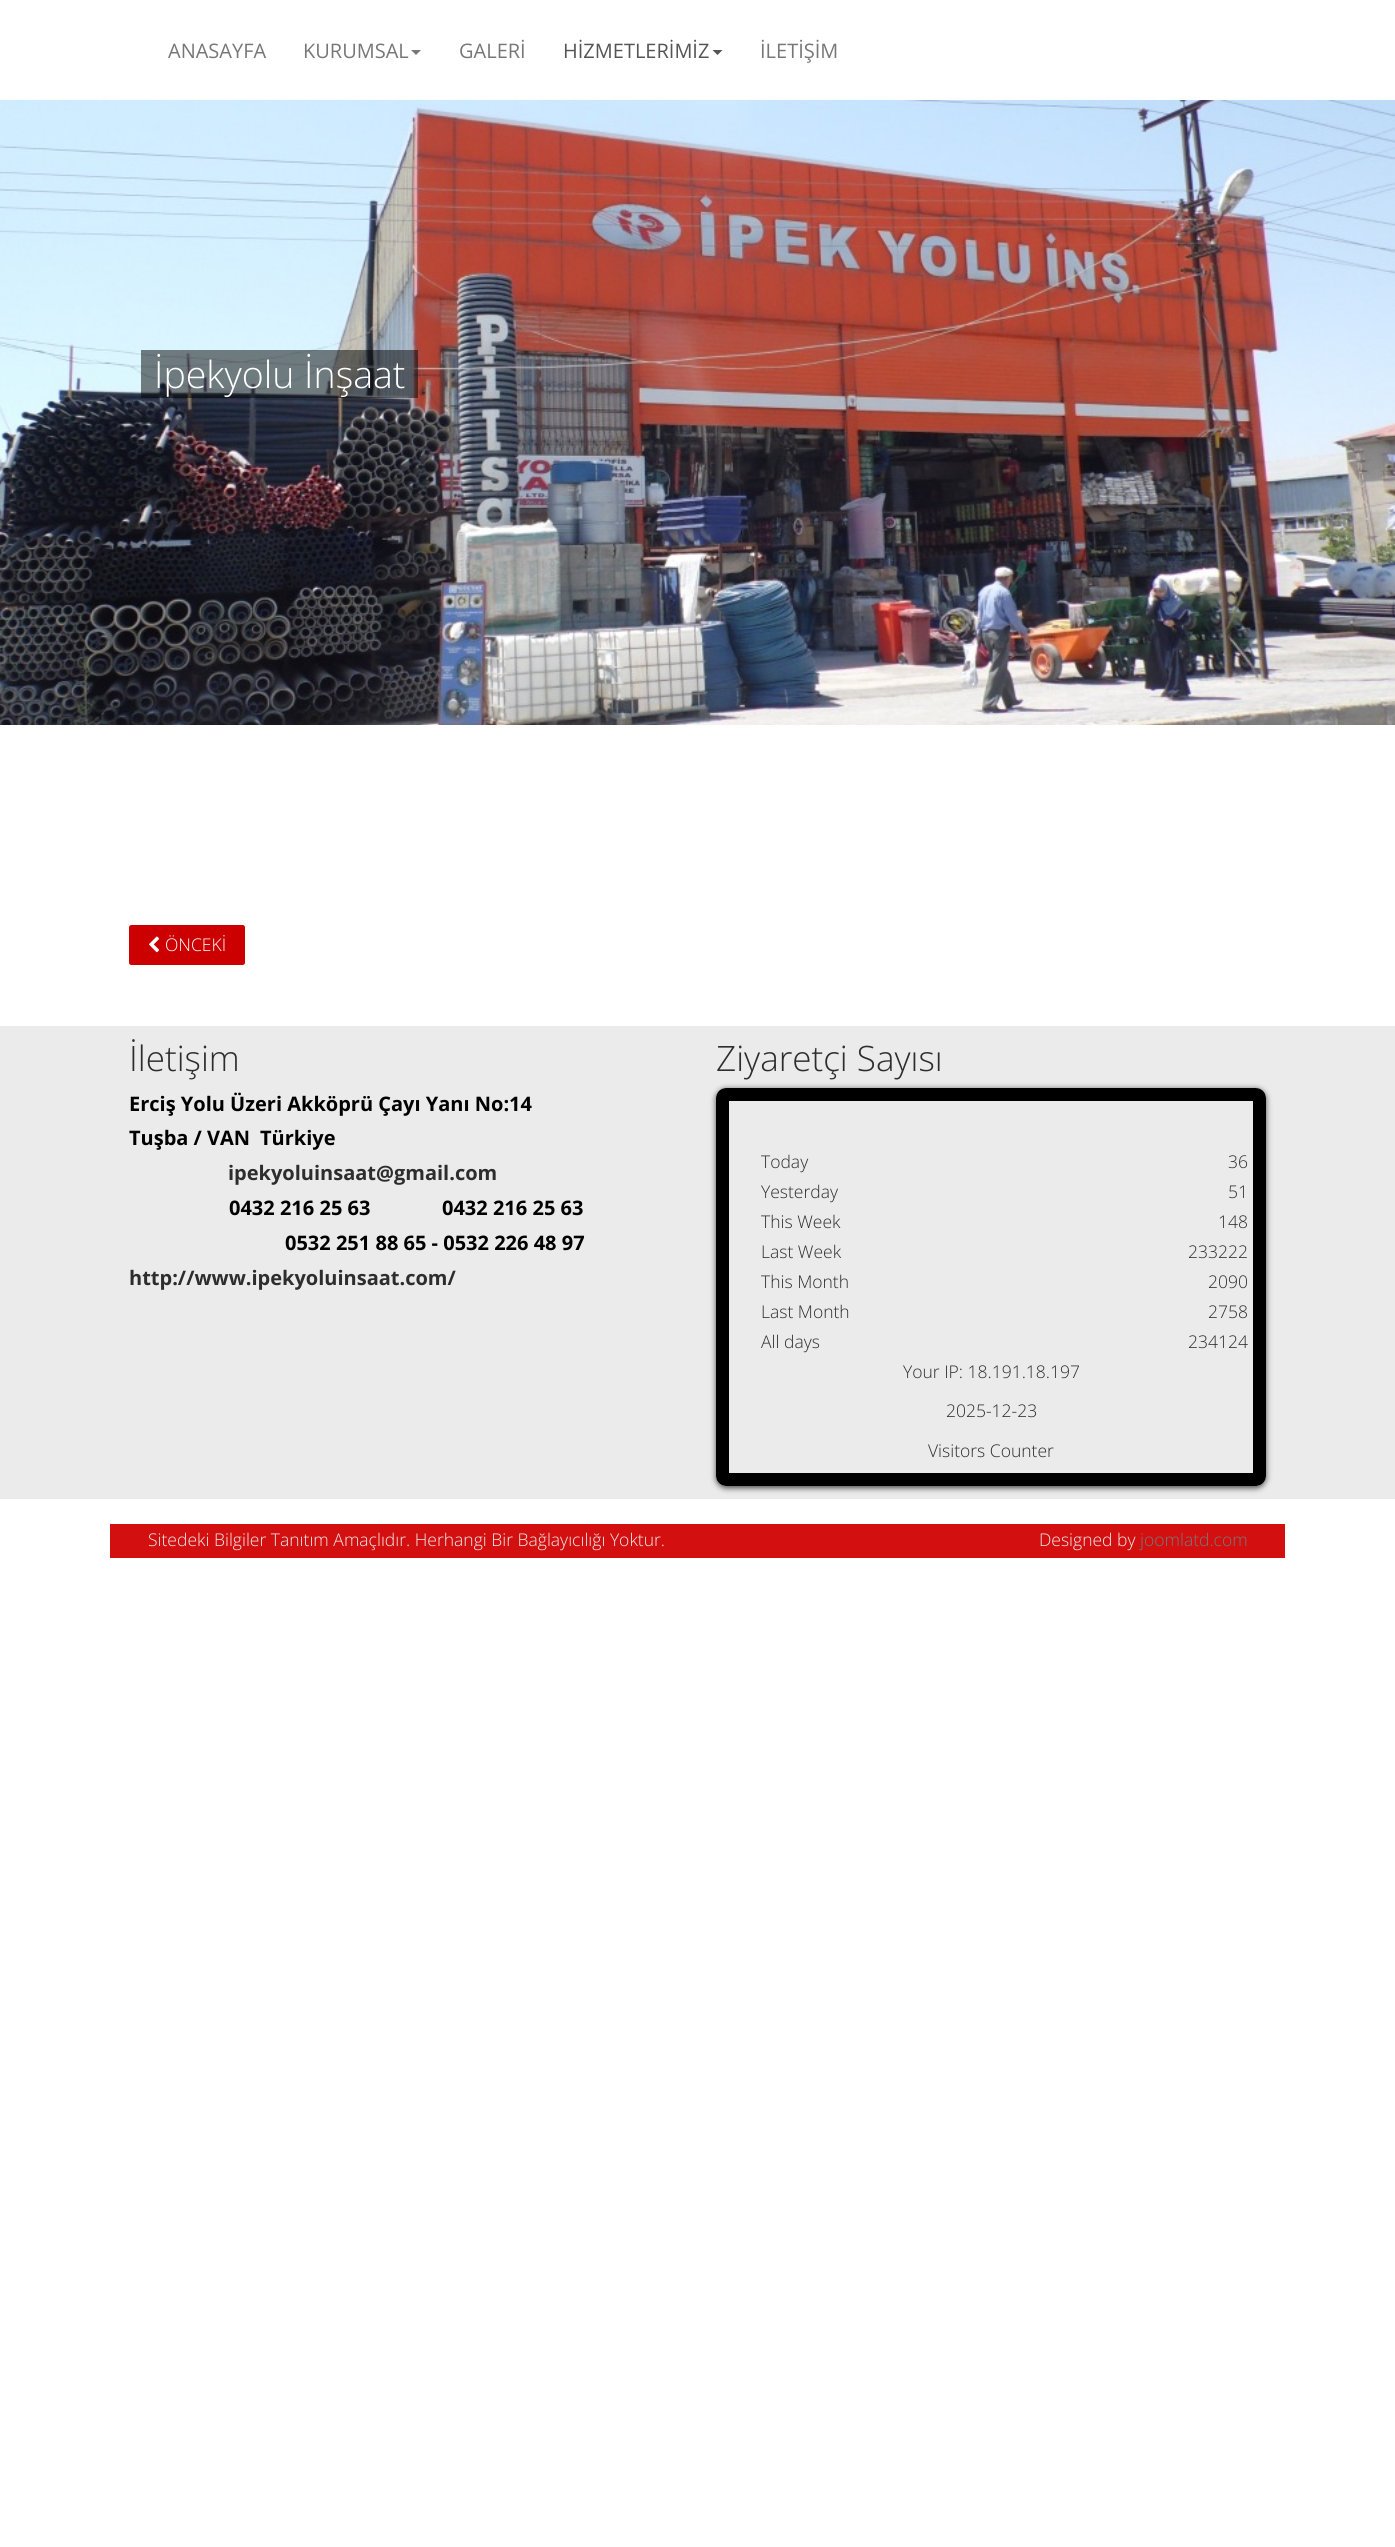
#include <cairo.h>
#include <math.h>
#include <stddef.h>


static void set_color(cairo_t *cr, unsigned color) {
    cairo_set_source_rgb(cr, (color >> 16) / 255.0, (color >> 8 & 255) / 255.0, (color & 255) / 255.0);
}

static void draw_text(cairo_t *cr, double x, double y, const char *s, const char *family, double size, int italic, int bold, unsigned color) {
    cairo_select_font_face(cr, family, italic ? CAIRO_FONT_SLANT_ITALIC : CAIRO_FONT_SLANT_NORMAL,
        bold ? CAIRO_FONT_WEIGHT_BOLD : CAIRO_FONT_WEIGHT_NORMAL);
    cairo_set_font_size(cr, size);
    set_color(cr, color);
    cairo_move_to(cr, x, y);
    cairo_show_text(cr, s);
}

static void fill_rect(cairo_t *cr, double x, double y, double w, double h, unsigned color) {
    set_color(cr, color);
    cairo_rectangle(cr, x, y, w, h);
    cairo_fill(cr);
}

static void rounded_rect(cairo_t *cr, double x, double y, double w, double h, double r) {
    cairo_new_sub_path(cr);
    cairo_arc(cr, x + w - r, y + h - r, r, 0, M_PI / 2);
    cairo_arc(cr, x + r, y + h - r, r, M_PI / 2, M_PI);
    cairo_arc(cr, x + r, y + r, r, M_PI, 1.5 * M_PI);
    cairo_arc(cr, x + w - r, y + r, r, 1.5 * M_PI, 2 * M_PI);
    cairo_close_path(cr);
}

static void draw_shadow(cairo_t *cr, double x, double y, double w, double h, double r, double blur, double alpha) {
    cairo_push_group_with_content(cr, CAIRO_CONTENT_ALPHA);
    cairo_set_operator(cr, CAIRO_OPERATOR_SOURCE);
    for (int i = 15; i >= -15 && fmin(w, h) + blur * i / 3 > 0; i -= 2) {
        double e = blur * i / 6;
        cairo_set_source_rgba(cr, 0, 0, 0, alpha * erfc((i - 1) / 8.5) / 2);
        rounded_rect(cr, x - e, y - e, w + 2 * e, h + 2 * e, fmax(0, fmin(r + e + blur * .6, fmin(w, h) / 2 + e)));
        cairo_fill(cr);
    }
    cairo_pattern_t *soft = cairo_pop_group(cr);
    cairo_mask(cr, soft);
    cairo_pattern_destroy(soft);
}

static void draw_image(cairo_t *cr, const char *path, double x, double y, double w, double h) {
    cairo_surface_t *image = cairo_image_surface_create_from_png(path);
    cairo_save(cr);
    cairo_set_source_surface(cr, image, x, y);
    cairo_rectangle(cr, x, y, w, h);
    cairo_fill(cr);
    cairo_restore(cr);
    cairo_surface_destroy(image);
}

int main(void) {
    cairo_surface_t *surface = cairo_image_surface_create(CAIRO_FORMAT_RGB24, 1395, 2547);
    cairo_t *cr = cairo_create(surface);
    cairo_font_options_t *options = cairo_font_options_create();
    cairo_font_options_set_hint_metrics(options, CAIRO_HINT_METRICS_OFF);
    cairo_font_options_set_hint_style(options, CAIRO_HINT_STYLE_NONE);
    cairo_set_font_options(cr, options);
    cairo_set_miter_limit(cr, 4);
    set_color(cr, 0xFFFFFF);
    cairo_paint(cr);
    draw_text(cr, 168, 58, "ANASAYFA", "Open Sans", 20, 0, 0, 0x777777);
    draw_text(cr, 303, 58, "KURUMSAL", "Open Sans", 20, 0, 0, 0x777777);
    cairo_new_path(cr);
    cairo_move_to(cr, 411, 50);
    cairo_line_to(cr, 421, 50);
    cairo_line_to(cr, 416, 55);
    cairo_close_path(cr);
    cairo_fill(cr);
    draw_text(cr, 459, 58, "GALERİ", "Open Sans", 20, 0, 0, 0x777777);
    draw_text(cr, 563, 58, "HİZMETLERİMİZ", "Open Sans", 20, 0, 0, 0x555555);
    cairo_new_path(cr);
    cairo_move_to(cr, 712.5, 50);
    cairo_line_to(cr, 722.5, 50);
    cairo_line_to(cr, 717.5, 55);
    cairo_close_path(cr);
    cairo_fill(cr);
    draw_text(cr, 760, 58, "İLETİŞİM", "Open Sans", 20, 0, 0, 0x777777);
    draw_image(cr, "assets/img1.png", 0, 100, 1395, 625);
    cairo_set_source_rgba(cr, 0, 0, 0, 0.5);
    cairo_rectangle(cr, 141, 350, 277, 48);
    cairo_fill(cr);
    draw_text(cr, 154, 388, "İpekyolu İnşaat", "Open Sans Light", 37.5, 0, 0, 0xFFFFFF);
    set_color(cr, 0xCC0000);
    rounded_rect(cr, 129.5, 925.5, 115, 39, 2);
    cairo_fill_preserve(cr);
    cairo_set_line_width(cr, 1);
    cairo_stroke(cr);
    draw_image(cr, "assets/img2.png", 149, 936, 11, 17);
    draw_text(cr, 165, 951, "ÖNCEKİ", "Open Sans Light", 17.5, 0, 0, 0xFFFFFF);
    fill_rect(cr, 0, 1026, 1395, 473, 0xEBEBEB);
    draw_text(cr, 129, 1071, "İletişim", "Open Sans Light", 35, 0, 0, 0x2E2D2D);
    draw_text(cr, 129, 1111, "Erciş Yolu Üzeri Akköprü Çayı Yanı No:14", "Open Sans", 20, 0, 1, 0x000000);
    draw_text(cr, 129, 1145, "Tuşba / VAN", "Open Sans", 20, 0, 1, 0x000000);
    draw_text(cr, 260, 1145, "Türkiye", "Open Sans", 20, 0, 1, 0x000000);
    draw_text(cr, 228, 1180, "ipekyoluinsaat@gmail.com", "Open Sans", 20, 0, 1, 0x2E2D2D);
    draw_text(cr, 229, 1215, "0432 216 25 63", "Open Sans", 20, 0, 1, 0x000000);
    draw_text(cr, 442, 1215, "0432 216 25 63", "Open Sans", 20, 0, 1, 0x000000);
    draw_text(cr, 285, 1250, "0532 251 88 65 - 0532 226 48 97", "Open Sans", 20, 0, 1, 0x000000);
    draw_text(cr, 129, 1285, "http://www.ipekyoluinsaat.com/", "Open Sans", 20, 0, 1, 0x2E2D2D);
    cairo_save(cr);
    cairo_set_fill_rule(cr, CAIRO_FILL_RULE_EVEN_ODD);
    cairo_new_path(cr);
    cairo_move_to(cr, 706, 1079);
    cairo_line_to(cr, 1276, 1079);
    cairo_line_to(cr, 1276, 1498);
    cairo_line_to(cr, 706, 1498);
    cairo_close_path(cr);
    cairo_move_to(cr, 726, 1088);
    cairo_line_to(cr, 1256, 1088);
    cairo_curve_to(cr, 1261.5, 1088, 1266, 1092.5, 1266, 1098);
    cairo_line_to(cr, 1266, 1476);
    cairo_curve_to(cr, 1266, 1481.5, 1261.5, 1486, 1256, 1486);
    cairo_line_to(cr, 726, 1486);
    cairo_curve_to(cr, 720.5, 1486, 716, 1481.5, 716, 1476);
    cairo_line_to(cr, 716, 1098);
    cairo_curve_to(cr, 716, 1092.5, 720.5, 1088, 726, 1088);
    cairo_close_path(cr);
    cairo_clip(cr);
    set_color(cr, 0x4A4A4A);
    draw_shadow(cr, 716, 1089, 550, 399, 10, 3, 1);
    cairo_restore(cr);
    draw_text(cr, 716, 1071, "Ziyaretçi Sayısı", "Open Sans Light", 35, 0, 0, 0x2E2D2D);
    rounded_rect(cr, 722.5, 1094.5, 537, 385, 3.5);
    set_color(cr, 0x000000);
    cairo_set_line_width(cr, 13);
    cairo_stroke(cr);
    draw_text(cr, 761, 1168, "Today", "Open Sans Light", 17.5, 0, 0, 0x2E2D2D);
    draw_text(cr, 761, 1198, "Yesterday", "Open Sans Light", 17.5, 0, 0, 0x2E2D2D);
    draw_text(cr, 761, 1228, "This Week", "Open Sans Light", 17.5, 0, 0, 0x2E2D2D);
    draw_text(cr, 761, 1258, "Last Week", "Open Sans Light", 17.5, 0, 0, 0x2E2D2D);
    draw_text(cr, 761, 1288, "This Month", "Open Sans Light", 17.5, 0, 0, 0x2E2D2D);
    draw_text(cr, 761, 1318, "Last Month", "Open Sans Light", 17.5, 0, 0, 0x2E2D2D);
    draw_text(cr, 761, 1348, "All days", "Open Sans Light", 17.5, 0, 0, 0x2E2D2D);
    draw_text(cr, 1228, 1168, "36", "Open Sans Light", 17.5, 0, 0, 0x2E2D2D);
    draw_text(cr, 1228, 1198, "51", "Open Sans Light", 17.5, 0, 0, 0x2E2D2D);
    draw_text(cr, 1218, 1228, "148", "Open Sans Light", 17.5, 0, 0, 0x2E2D2D);
    draw_text(cr, 1188, 1258, "233222", "Open Sans Light", 17.5, 0, 0, 0x2E2D2D);
    draw_text(cr, 1208, 1288, "2090", "Open Sans Light", 17.5, 0, 0, 0x2E2D2D);
    draw_text(cr, 1208, 1318, "2758", "Open Sans Light", 17.5, 0, 0, 0x2E2D2D);
    draw_text(cr, 1188, 1348, "234124", "Open Sans Light", 17.5, 0, 0, 0x2E2D2D);
    draw_text(cr, 903, 1378, "Your IP: 18.191.18.197", "Open Sans Light", 17.5, 0, 0, 0x2E2D2D);
    draw_text(cr, 946, 1417, "2025-12-23", "Open Sans Light", 17.5, 0, 0, 0x2E2D2D);
    draw_text(cr, 928, 1457, "Visitors Counter", "Open Sans Light", 17.5, 0, 0, 0x2E2D2D);
    fill_rect(cr, 110, 1524, 1175, 34, 0xD40F0F);
    draw_text(cr, 148, 1546, "Sitedeki Bilgiler Tanıtım Amaçlıdır. Herhangi Bir Bağlayıcılığı Yoktur.", "Open Sans Light", 17.5, 0, 0, 0xEDEDED);
    draw_text(cr, 1039, 1546, "Designed by", "Open Sans Light", 17.5, 0, 0, 0xEDEDED);
    draw_text(cr, 1140, 1546, "joomlatd.com", "Open Sans Light", 17.5, 0, 0, 0x777777);
    cairo_surface_write_to_png(surface, "output.png");
    cairo_font_options_destroy(options);
    cairo_destroy(cr);
    cairo_surface_destroy(surface);
    return 0;
}
